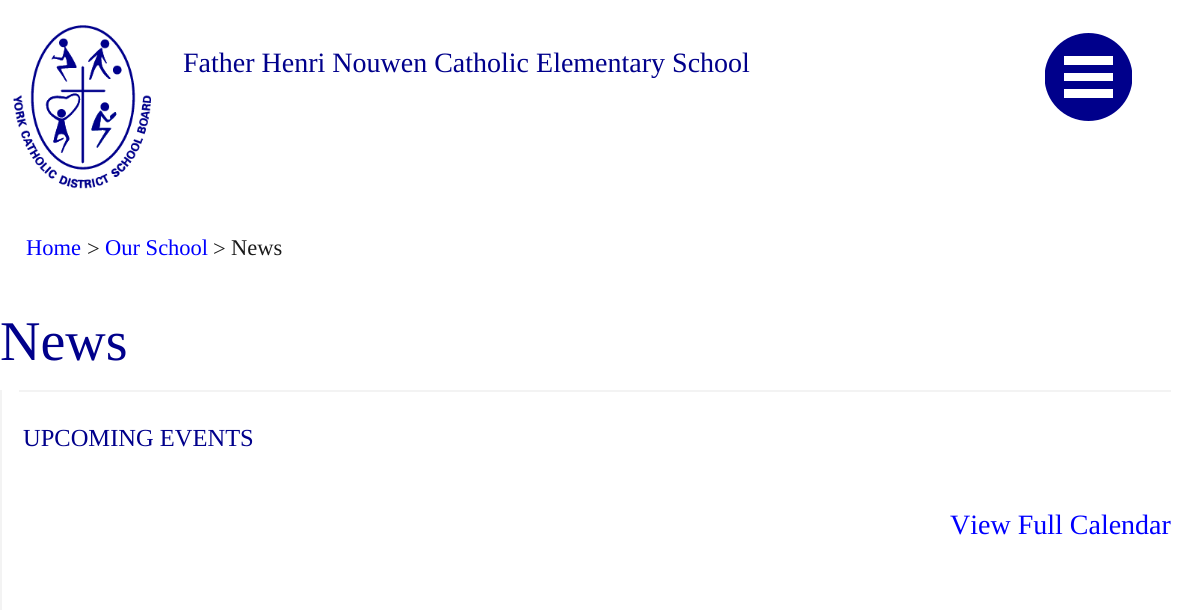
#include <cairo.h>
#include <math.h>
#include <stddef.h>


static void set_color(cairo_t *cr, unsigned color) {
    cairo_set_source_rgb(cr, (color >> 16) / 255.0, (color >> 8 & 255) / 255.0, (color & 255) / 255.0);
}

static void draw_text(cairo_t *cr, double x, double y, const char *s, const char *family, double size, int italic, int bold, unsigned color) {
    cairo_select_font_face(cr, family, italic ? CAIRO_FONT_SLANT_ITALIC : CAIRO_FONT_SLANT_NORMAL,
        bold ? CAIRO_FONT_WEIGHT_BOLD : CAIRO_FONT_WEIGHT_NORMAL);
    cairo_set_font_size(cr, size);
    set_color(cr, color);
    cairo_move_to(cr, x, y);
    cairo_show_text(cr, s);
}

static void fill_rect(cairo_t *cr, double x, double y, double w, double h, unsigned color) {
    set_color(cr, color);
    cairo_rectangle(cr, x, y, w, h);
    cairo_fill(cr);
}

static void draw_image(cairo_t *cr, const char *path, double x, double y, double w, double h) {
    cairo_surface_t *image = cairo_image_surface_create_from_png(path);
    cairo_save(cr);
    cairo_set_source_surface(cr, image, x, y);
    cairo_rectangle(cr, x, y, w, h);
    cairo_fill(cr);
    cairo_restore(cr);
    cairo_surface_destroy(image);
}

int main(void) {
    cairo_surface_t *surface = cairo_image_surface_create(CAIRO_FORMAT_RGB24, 1187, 610);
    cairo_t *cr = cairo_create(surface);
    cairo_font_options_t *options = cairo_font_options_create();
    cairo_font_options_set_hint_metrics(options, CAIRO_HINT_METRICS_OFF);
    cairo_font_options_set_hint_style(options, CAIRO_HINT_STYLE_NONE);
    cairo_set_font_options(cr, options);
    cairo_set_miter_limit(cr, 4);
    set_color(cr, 0xFFFFFF);
    cairo_paint(cr);
    draw_image(cr, "assets/img1.png", 13, 25, 138, 164);
    draw_text(cr, 183, 72, "Father Henri Nouwen Catholic Elementary School", "Liberation Serif", 28, 0, 0, 0x00008B);
    cairo_save(cr);
    cairo_rectangle(cr, 1045, 33, 87, 88);
    cairo_clip(cr);
    cairo_arc(cr, 1088.5, 77, 44, 0, 2 * M_PI);
    cairo_fill(cr);
    cairo_restore(cr);
    fill_rect(cr, 1064, 56, 49, 9, 0xFFFFFF);
    fill_rect(cr, 1064, 73, 49, 8, 0xFFFFFF);
    fill_rect(cr, 1064, 89, 49, 9, 0xFFFFFF);
    draw_text(cr, 26, 255, "Home", "Liberation Serif", 22.5, 0, 0, 0x0000FF);
    draw_text(cr, 87, 256, ">", "Liberation Serif", 22.5, 0, 0, 0x1A1A1A);
    draw_text(cr, 105, 255, "Our School", "Liberation Serif", 22.5, 0, 0, 0x0000FF);
    draw_text(cr, 213, 256, ">", "Liberation Serif", 22.5, 0, 0, 0x1A1A1A);
    draw_text(cr, 231, 255, "News", "Liberation Serif", 22.5, 0, 0, 0x1A1A1A);
    draw_text(cr, 0, 360, "News", "Liberation Serif", 56, 0, 0, 0x00008B);
    fill_rect(cr, 0, 390, 2, 220, 0xF3F3F3);
    fill_rect(cr, 19, 390, 1152, 2, 0xF3F3F3);
    draw_text(cr, 23, 446, "UPCOMING EVENTS", "Liberation Serif", 24.5, 0, 0, 0x00008B);
    draw_text(cr, 950, 534, "View Full Calendar", "Liberation Serif", 28, 0, 0, 0x0000FF);
    cairo_surface_write_to_png(surface, "output.png");
    cairo_font_options_destroy(options);
    cairo_destroy(cr);
    cairo_surface_destroy(surface);
    return 0;
}
